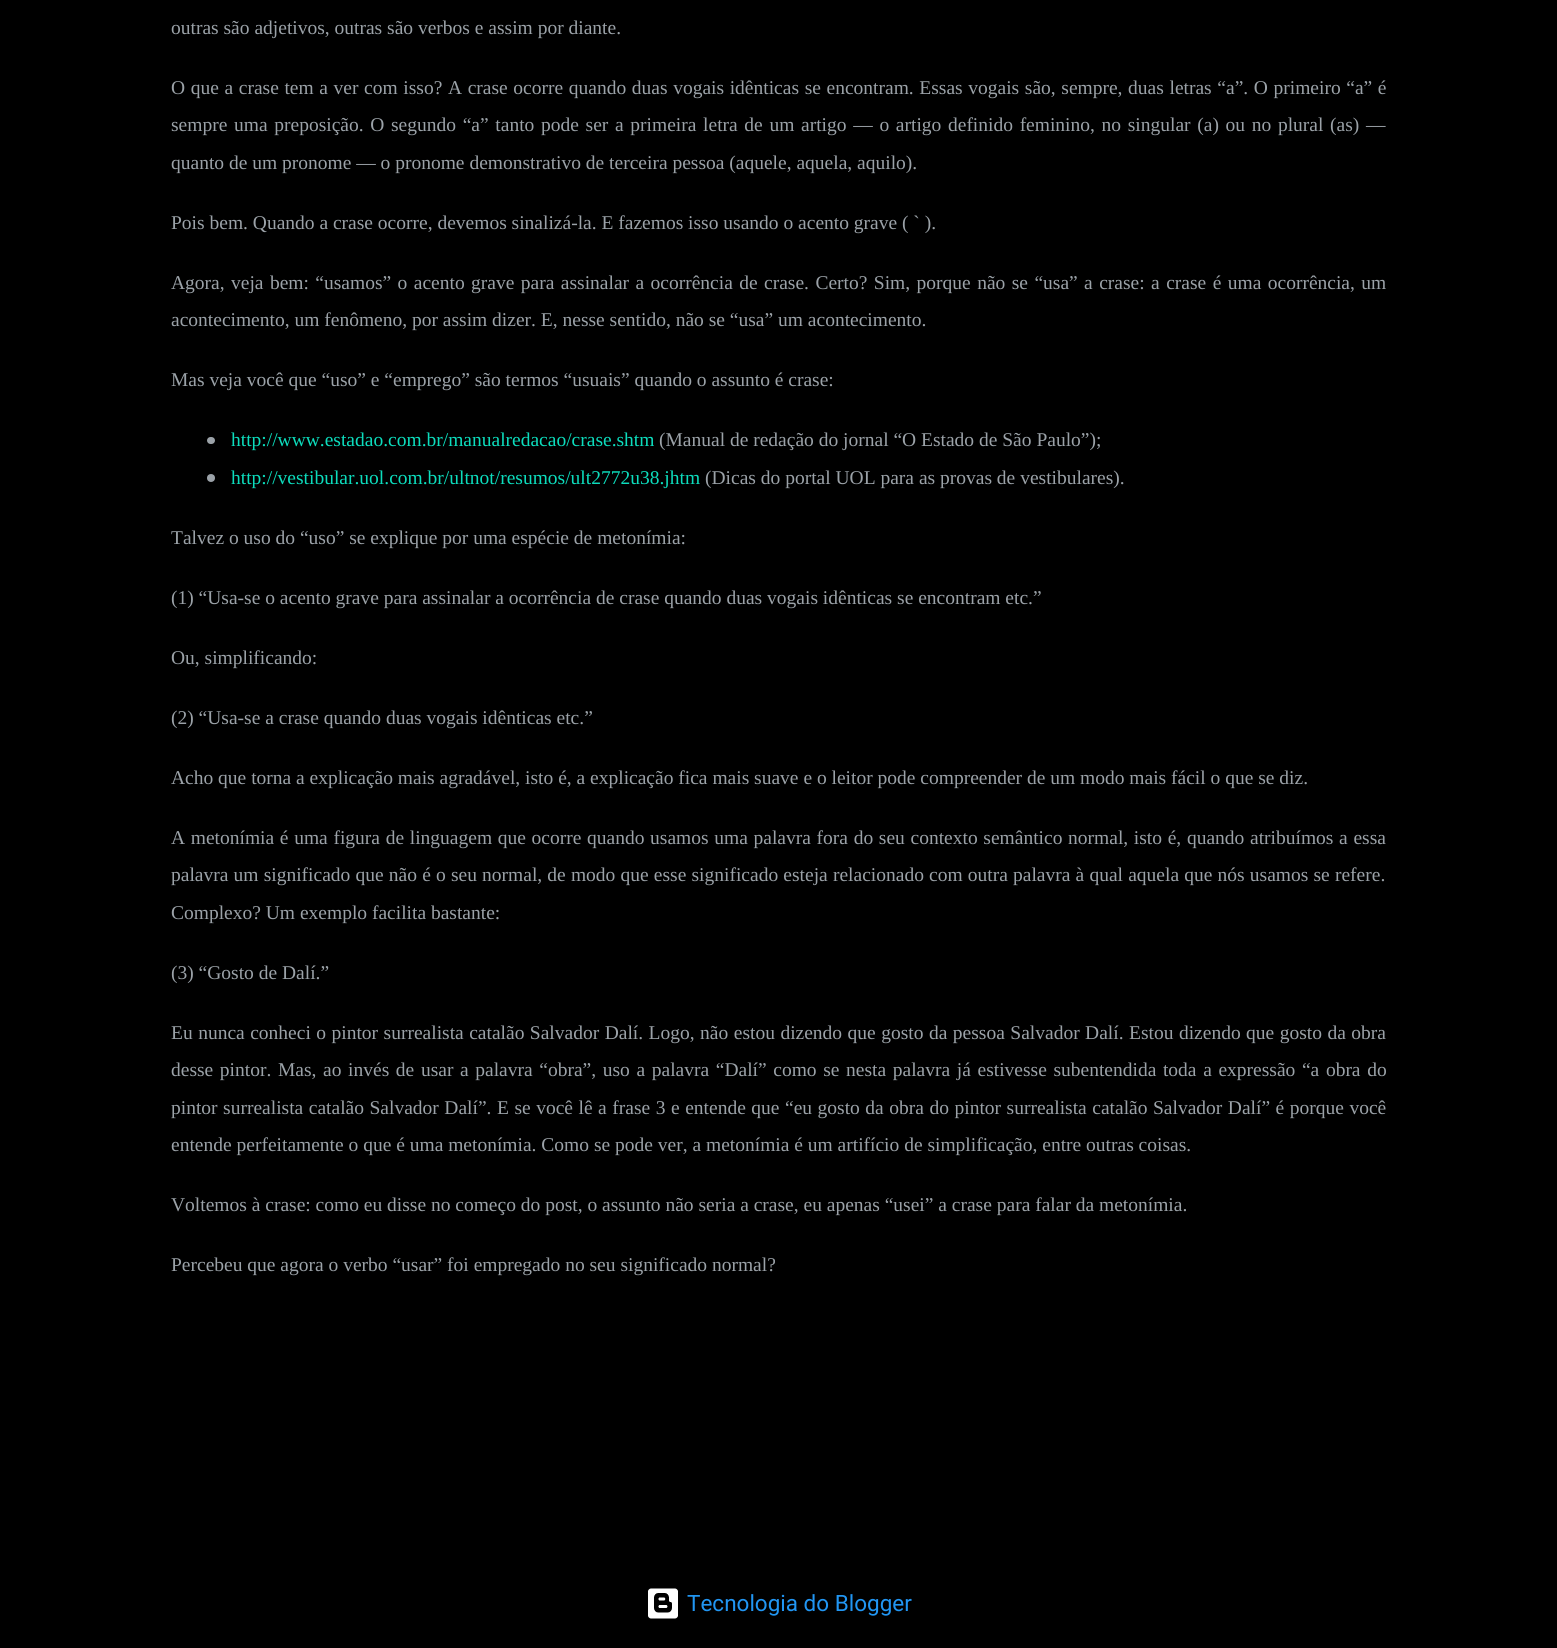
#include <cairo.h>
#include <math.h>
#include <stddef.h>


static void set_color(cairo_t *cr, unsigned color) {
    cairo_set_source_rgb(cr, (color >> 16) / 255.0, (color >> 8 & 255) / 255.0, (color & 255) / 255.0);
}

static void draw_text(cairo_t *cr, double x, double y, const char *s, const char *family, double size, int italic, int bold, unsigned color) {
    cairo_select_font_face(cr, family, italic ? CAIRO_FONT_SLANT_ITALIC : CAIRO_FONT_SLANT_NORMAL,
        bold ? CAIRO_FONT_WEIGHT_BOLD : CAIRO_FONT_WEIGHT_NORMAL);
    cairo_set_font_size(cr, size);
    set_color(cr, color);
    cairo_move_to(cr, x, y);
    cairo_show_text(cr, s);
}

static void draw_spaced(cairo_t *cr, double x, double y, const char *s, double letter, double word) {
    cairo_move_to(cr, x, y);
    while (*s) {
        char ch[5] = {0};
        int n = 0;
        do ch[n++] = *s++; while ((*s & 0xC0) == 0x80);
        cairo_show_text(cr, ch);
        cairo_rel_move_to(cr, letter + word * (*ch == ' '), 0);
    }
}

static void rounded_rect(cairo_t *cr, double x, double y, double w, double h, double r) {
    cairo_new_sub_path(cr);
    cairo_arc(cr, x + w - r, y + h - r, r, 0, M_PI / 2);
    cairo_arc(cr, x + r, y + h - r, r, M_PI / 2, M_PI);
    cairo_arc(cr, x + r, y + r, r, M_PI, 1.5 * M_PI);
    cairo_arc(cr, x + w - r, y + r, r, 1.5 * M_PI, 2 * M_PI);
    cairo_close_path(cr);
}

static void draw_image(cairo_t *cr, const char *path, double x, double y, double w, double h) {
    cairo_surface_t *image = cairo_image_surface_create_from_png(path);
    cairo_save(cr);
    cairo_set_source_surface(cr, image, x, y);
    cairo_rectangle(cr, x, y, w, h);
    cairo_fill(cr);
    cairo_restore(cr);
    cairo_surface_destroy(image);
}

int main(void) {
    cairo_surface_t *surface = cairo_image_surface_create(CAIRO_FORMAT_RGB24, 1557, 1648);
    cairo_t *cr = cairo_create(surface);
    cairo_font_options_t *options = cairo_font_options_create();
    cairo_font_options_set_hint_metrics(options, CAIRO_HINT_METRICS_OFF);
    cairo_font_options_set_hint_style(options, CAIRO_HINT_STYLE_NONE);
    cairo_set_font_options(cr, options);
    cairo_set_miter_limit(cr, 4);
    set_color(cr, 0x000000);
    cairo_paint(cr);
    draw_text(cr, 171, 34, "outras são adjetivos, outras são verbos e assim por diante.", "Liberation Serif", 19.5, 0, 0, 0x9BA2A8);
    draw_spaced(cr, 171, 94, "O que a crase tem a ver com isso? A crase ocorre quando duas vogais idênticas se encontram. Essas vogais são, sempre, duas letras “a”. O primeiro “a” é", 0, 0.75);
    draw_spaced(cr, 171, 131, "sempre uma preposição. O segundo “a” tanto pode ser a primeira letra de um artigo — o artigo definido feminino, no singular (a) ou no plural (as) —", 0, 1.8);
    draw_text(cr, 171, 169, "quanto de um pronome — o pronome demonstrativo de terceira pessoa (aquele, aquela, aquilo).", "Liberation Serif", 19.5, 0, 0, 0x9BA2A8);
    draw_text(cr, 171, 229, "Pois bem. Quando a crase ocorre, devemos sinalizá-la. E fazemos isso usando o acento grave ( ` ).", "Liberation Serif", 19.5, 0, 0, 0x9BA2A8);
    draw_spaced(cr, 171, 289, "Agora, veja bem: “usamos” o acento grave para assinalar a ocorrência de crase. Certo? Sim, porque não se “usa” a crase: a crase é uma ocorrência, um", 0, 1.55);
    draw_text(cr, 171, 326, "acontecimento, um fenômeno, por assim dizer. E, nesse sentido, não se “usa” um acontecimento.", "Liberation Serif", 19.5, 0, 0, 0x9BA2A8);
    draw_text(cr, 171, 386, "Mas veja você que “uso” e “emprego” são termos “usuais” quando o assunto é crase:", "Liberation Serif", 19.5, 0, 0, 0x9BA2A8);
    rounded_rect(cr, 207, 437, 8, 7, 3.5);
    cairo_fill(cr);
    draw_text(cr, 231, 446, "http://www.estadao.com.br/manualredacao/crase.shtm", "Liberation Serif", 19.5, 0, 0, 0x0CDDBD);
    draw_text(cr, 659, 446, "(Manual de redação do jornal “O Estado de São Paulo”);", "Liberation Serif", 19.5, 0, 0, 0x9BA2A8);
    cairo_new_path(cr);
    cairo_arc(cr, 211, 478, 4, 0, 2 * M_PI);
    cairo_fill(cr);
    draw_text(cr, 231, 484, "http://vestibular.uol.com.br/ultnot/resumos/ult2772u38.jhtm", "Liberation Serif", 19.5, 0, 0, 0x0CDDBD);
    draw_text(cr, 705, 484, "(Dicas do portal UOL para as provas de vestibulares).", "Liberation Serif", 19.5, 0, 0, 0x9BA2A8);
    draw_text(cr, 171, 544, "Talvez o uso do “uso” se explique por uma espécie de metonímia:", "Liberation Serif", 19.5, 0, 0, 0x9BA2A8);
    draw_text(cr, 171, 604, "(1) “Usa-se o acento grave para assinalar a ocorrência de crase quando duas vogais idênticas se encontram etc.”", "Liberation Serif", 19.5, 0, 0, 0x9BA2A8);
    draw_text(cr, 171, 664, "Ou, simplificando:", "Liberation Serif", 19.5, 0, 0, 0x9BA2A8);
    draw_text(cr, 171, 724, "(2) “Usa-se a crase quando duas vogais idênticas etc.”", "Liberation Serif", 19.5, 0, 0, 0x9BA2A8);
    draw_text(cr, 171, 784, "Acho que torna a explicação mais agradável, isto é, a explicação fica mais suave e o leitor pode compreender de um modo mais fácil o que se diz.", "Liberation Serif", 19.5, 0, 0, 0x9BA2A8);
    draw_spaced(cr, 171, 844, "A metonímia é uma figura de linguagem que ocorre quando usamos uma palavra fora do seu contexto semântico normal, isto é, quando atribuímos a essa", 0, 0.8);
    draw_spaced(cr, 171, 881, "palavra um significado que não é o seu normal, de modo que esse significado esteja relacionado com outra palavra à qual aquela que nós usamos se refere.", 0, 0.3);
    draw_text(cr, 171, 919, "Complexo? Um exemplo facilita bastante:", "Liberation Serif", 19.5, 0, 0, 0x9BA2A8);
    draw_text(cr, 171, 979, "(3) “Gosto de Dalí.”", "Liberation Serif", 19.5, 0, 0, 0x9BA2A8);
    draw_spaced(cr, 171, 1039, "Eu nunca conheci o pintor surrealista catalão Salvador Dalí. Logo, não estou dizendo que gosto da pessoa Salvador Dalí. Estou dizendo que gosto da obra", 0, 0.6);
    draw_spaced(cr, 171, 1076, "desse pintor. Mas, ao invés de usar a palavra “obra”, uso a palavra “Dalí” como se nesta palavra já estivesse subentendida toda a expressão “a obra do", 0, 1.75);
    draw_spaced(cr, 171, 1114, "pintor surrealista catalão Salvador Dalí”. E se você lê a frase 3 e entende que “eu gosto da obra do pintor surrealista catalão Salvador Dalí” é porque você", 0, 0.65);
    draw_text(cr, 171, 1151, "entende perfeitamente o que é uma metonímia. Como se pode ver, a metonímia é um artifício de simplificação, entre outras coisas.", "Liberation Serif", 19.5, 0, 0, 0x9BA2A8);
    draw_text(cr, 171, 1211, "Voltemos à crase: como eu disse no começo do post, o assunto não seria a crase, eu apenas “usei” a crase para falar da metonímia.", "Liberation Serif", 19.5, 0, 0, 0x9BA2A8);
    draw_text(cr, 171, 1271, "Percebeu que agora o verbo “usar” foi empregado no seu significado normal?", "Liberation Serif", 19.5, 0, 0, 0x9BA2A8);
    draw_image(cr, "assets/img1.png", 648, 1588, 30, 31);
    draw_text(cr, 687, 1611, "Tecnologia do Blogger", "Roboto", 22.5, 0, 0, 0x2196F3);
    cairo_surface_write_to_png(surface, "output.png");
    cairo_font_options_destroy(options);
    cairo_destroy(cr);
    cairo_surface_destroy(surface);
    return 0;
}
